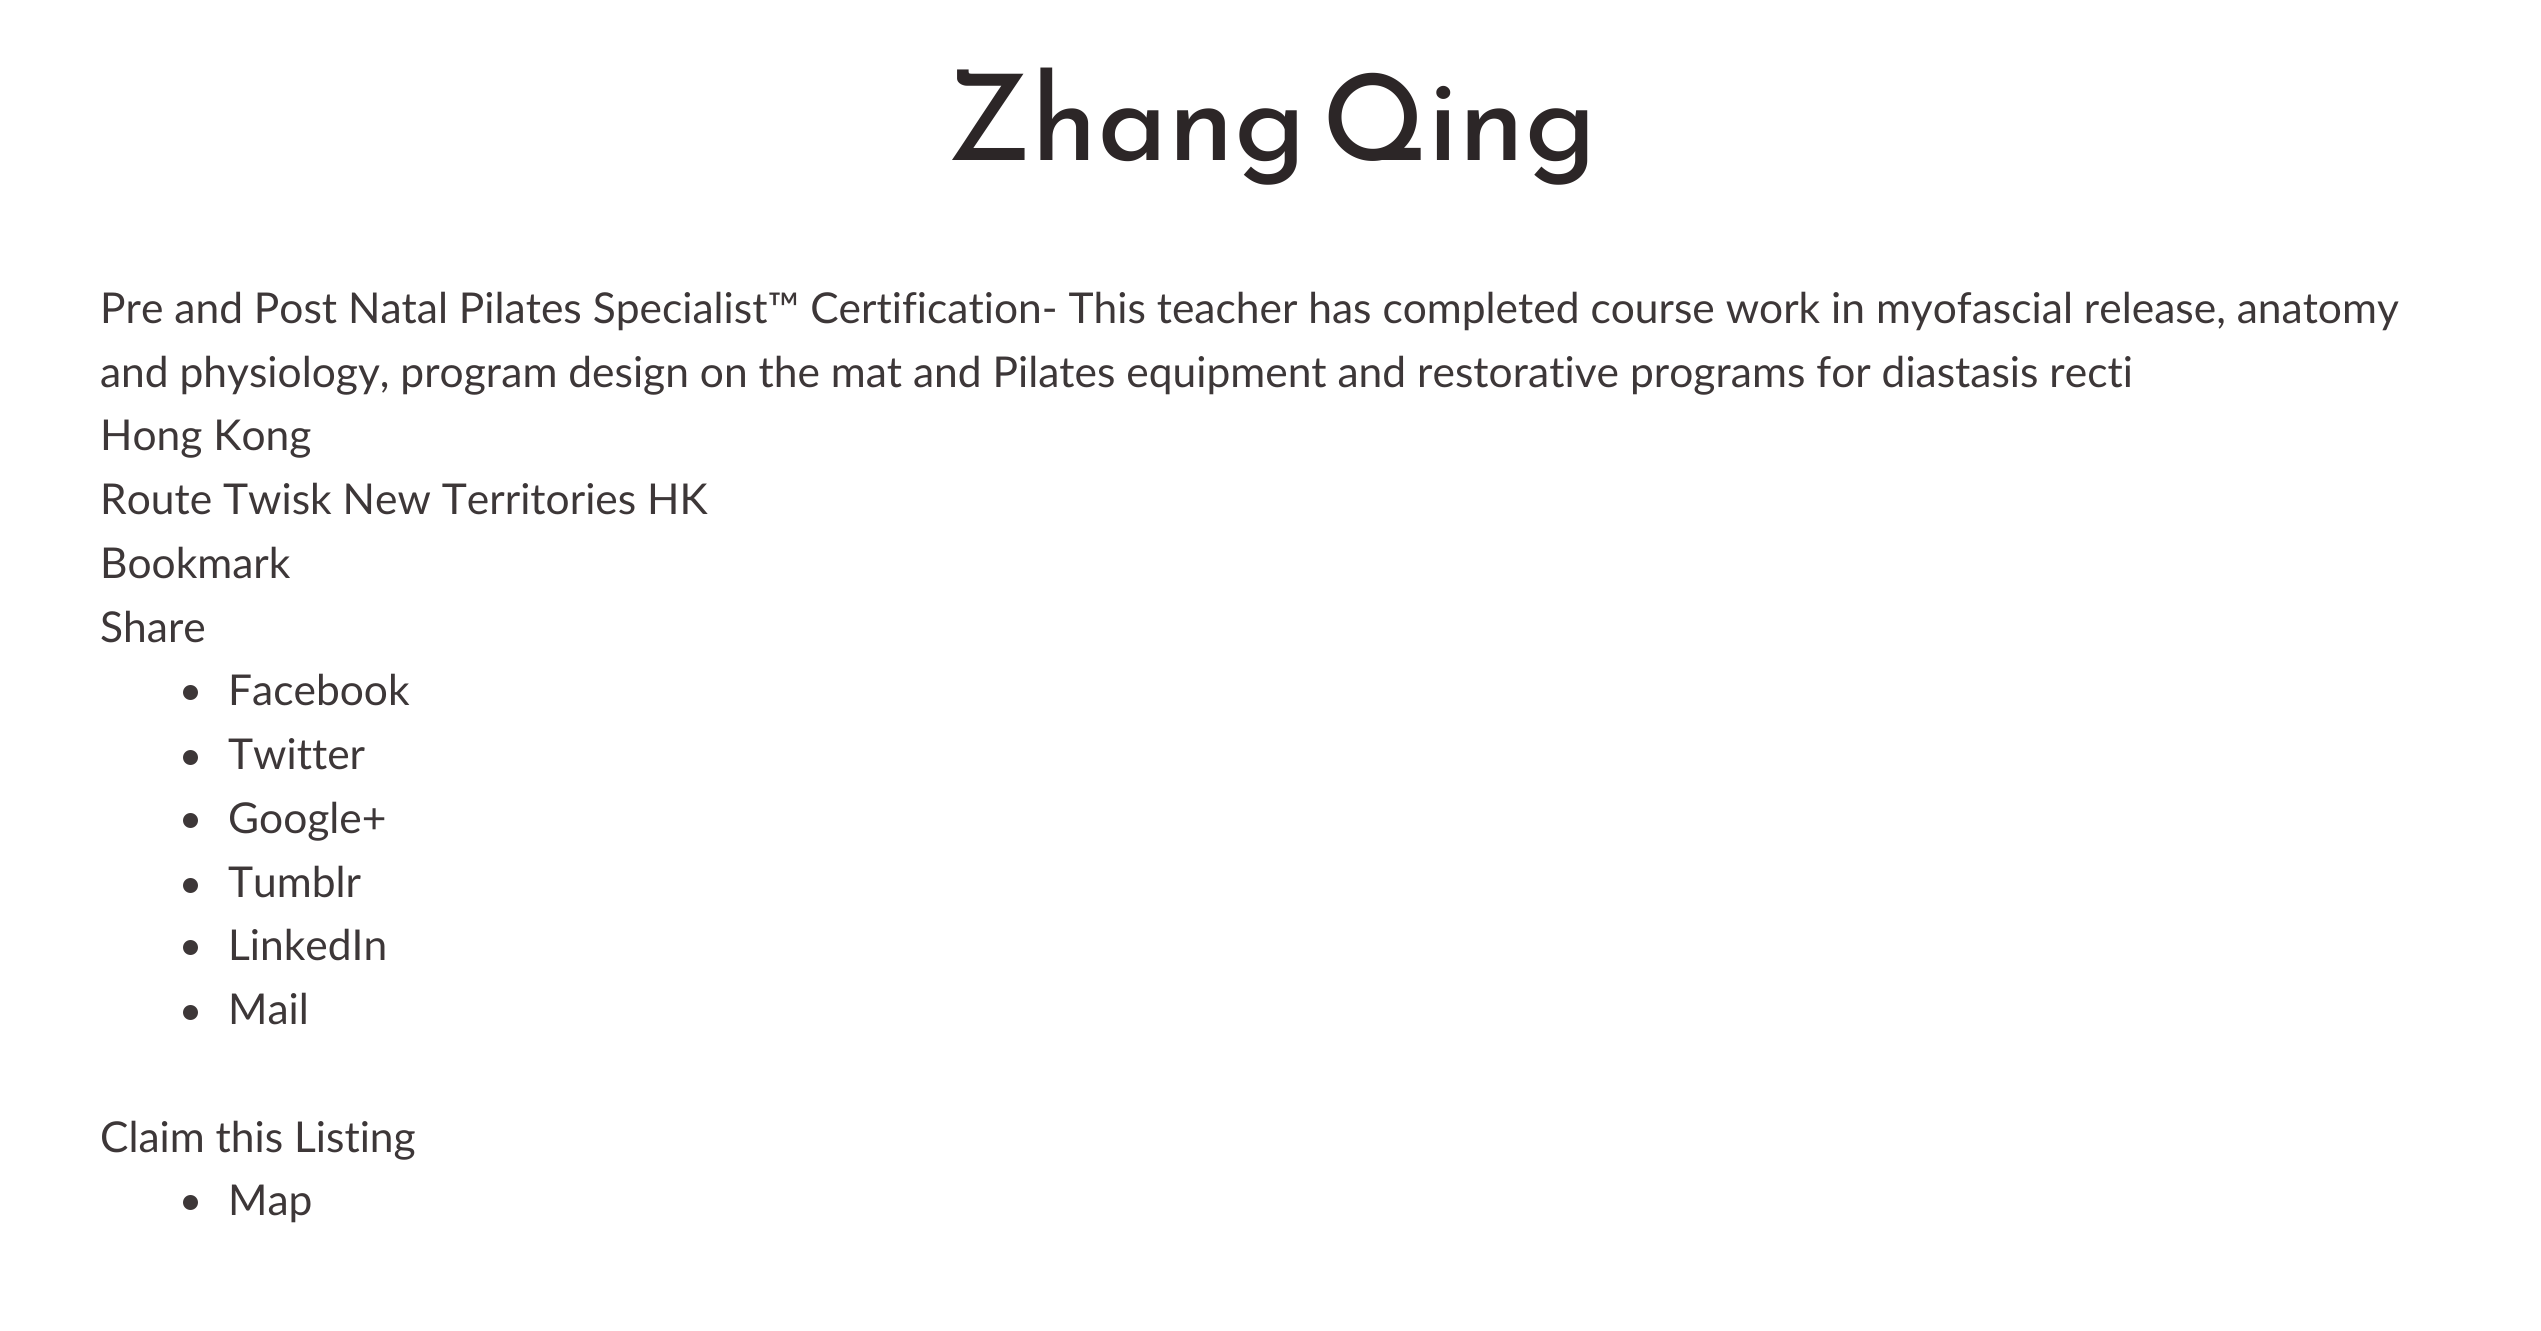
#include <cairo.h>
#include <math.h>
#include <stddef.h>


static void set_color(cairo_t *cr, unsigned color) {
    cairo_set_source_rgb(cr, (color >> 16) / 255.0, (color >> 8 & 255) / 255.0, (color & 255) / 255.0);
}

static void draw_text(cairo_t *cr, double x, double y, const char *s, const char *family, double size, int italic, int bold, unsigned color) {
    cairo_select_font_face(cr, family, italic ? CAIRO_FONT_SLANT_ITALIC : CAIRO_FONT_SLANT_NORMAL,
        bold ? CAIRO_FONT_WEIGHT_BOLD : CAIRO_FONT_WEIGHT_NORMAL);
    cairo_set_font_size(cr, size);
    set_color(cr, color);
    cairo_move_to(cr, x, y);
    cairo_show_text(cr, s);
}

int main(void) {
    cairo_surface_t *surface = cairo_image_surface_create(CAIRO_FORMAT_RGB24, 2541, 1331);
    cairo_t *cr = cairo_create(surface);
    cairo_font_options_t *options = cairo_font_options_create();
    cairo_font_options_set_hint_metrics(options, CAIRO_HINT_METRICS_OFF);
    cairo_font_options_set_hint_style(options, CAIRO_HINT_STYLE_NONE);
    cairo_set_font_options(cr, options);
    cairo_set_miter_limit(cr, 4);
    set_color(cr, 0xFFFFFF);
    cairo_paint(cr);
    draw_text(cr, 946, 160, "Zhang Qing", "Reem Kufi", 119, 0, 0, 0x2C2627);
    draw_text(cr, 100, 323, "Pre and Post Natal Pilates Specialist™ Certification- This teacher has completed course work in myofascial release, anatomy", "Lato", 42.5, 0, 0, 0x3D3738);
    draw_text(cr, 100, 387, "and physiology, program design on the mat and Pilates equipment and restorative programs for diastasis recti", "Lato", 42.5, 0, 0, 0x3D3738);
    draw_text(cr, 100, 450, "Hong Kong", "Lato", 42.5, 0, 0, 0x3D3738);
    draw_text(cr, 100, 514, "Route Twisk New Territories HK", "Lato", 42.5, 0, 0, 0x3D3738);
    draw_text(cr, 100, 578, "Bookmark", "Lato", 42.5, 0, 0, 0x3D3738);
    draw_text(cr, 100, 642, "Share", "Lato", 42.5, 0, 0, 0x3D3738);
    cairo_new_path(cr);
    cairo_arc(cr, 190.5, 692.5, 7.5, 0, 2 * M_PI);
    cairo_fill(cr);
    draw_text(cr, 228, 705, "Facebook", "Lato", 42.5, 0, 0, 0x3D3738);
    cairo_new_path(cr);
    cairo_arc(cr, 190.5, 757.5, 7.5, 0, 2 * M_PI);
    cairo_fill(cr);
    draw_text(cr, 228, 769, "Twitter", "Lato", 42.5, 0, 0, 0x3D3738);
    cairo_new_path(cr);
    cairo_arc(cr, 190.5, 820.5, 7.5, 0, 2 * M_PI);
    cairo_fill(cr);
    draw_text(cr, 228, 833, "Google+", "Lato", 42.5, 0, 0, 0x3D3738);
    cairo_new_path(cr);
    cairo_arc(cr, 190.5, 885.5, 7.5, 0, 2 * M_PI);
    cairo_fill(cr);
    draw_text(cr, 228, 897, "Tumblr", "Lato", 42.5, 0, 0, 0x3D3738);
    cairo_new_path(cr);
    cairo_arc(cr, 190.5, 947.5, 7.5, 0, 2 * M_PI);
    cairo_fill(cr);
    draw_text(cr, 228, 960, "LinkedIn", "Lato", 42.5, 0, 0, 0x3D3738);
    cairo_new_path(cr);
    cairo_arc(cr, 190.5, 1012.5, 7.5, 0, 2 * M_PI);
    cairo_fill(cr);
    draw_text(cr, 228, 1024, "Mail", "Lato", 42.5, 0, 0, 0x3D3738);
    draw_text(cr, 100, 1152, "Claim this Listing", "Lato", 42.5, 0, 0, 0x3D3738);
    cairo_new_path(cr);
    cairo_arc(cr, 190.5, 1202.5, 7.5, 0, 2 * M_PI);
    cairo_fill(cr);
    draw_text(cr, 228, 1215, "Map", "Lato", 42.5, 0, 0, 0x3D3738);
    cairo_surface_write_to_png(surface, "output.png");
    cairo_font_options_destroy(options);
    cairo_destroy(cr);
    cairo_surface_destroy(surface);
    return 0;
}
